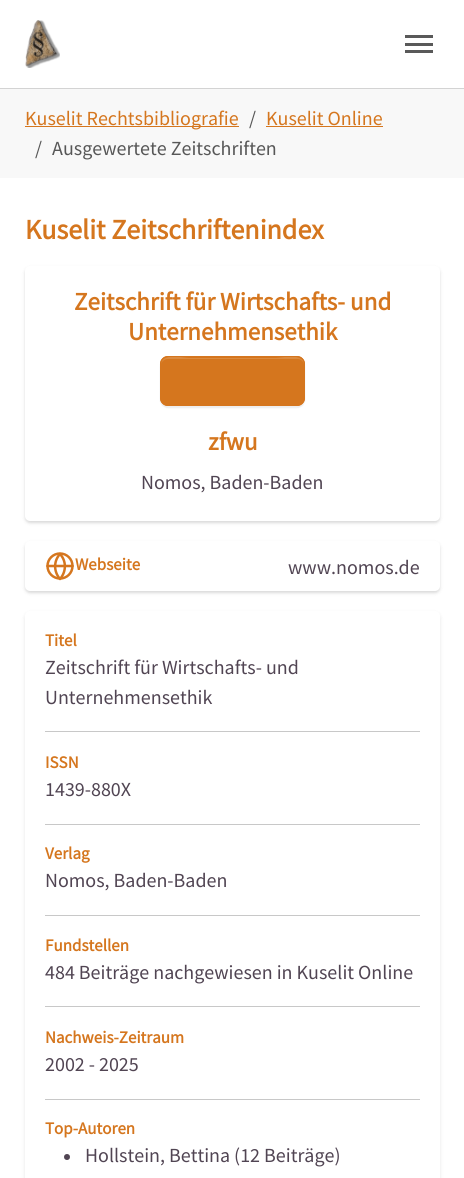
#include <cairo.h>
#include <math.h>
#include <stddef.h>


static void set_color(cairo_t *cr, unsigned color) {
    cairo_set_source_rgb(cr, (color >> 16) / 255.0, (color >> 8 & 255) / 255.0, (color & 255) / 255.0);
}

static void draw_text(cairo_t *cr, double x, double y, const char *s, const char *family, double size, int italic, int bold, unsigned color) {
    cairo_select_font_face(cr, family, italic ? CAIRO_FONT_SLANT_ITALIC : CAIRO_FONT_SLANT_NORMAL,
        bold ? CAIRO_FONT_WEIGHT_BOLD : CAIRO_FONT_WEIGHT_NORMAL);
    cairo_set_font_size(cr, size);
    set_color(cr, color);
    cairo_move_to(cr, x, y);
    cairo_show_text(cr, s);
}

static void fill_rect(cairo_t *cr, double x, double y, double w, double h, unsigned color) {
    set_color(cr, color);
    cairo_rectangle(cr, x, y, w, h);
    cairo_fill(cr);
}

static void rounded_rect(cairo_t *cr, double x, double y, double w, double h, double r) {
    cairo_new_sub_path(cr);
    cairo_arc(cr, x + w - r, y + h - r, r, 0, M_PI / 2);
    cairo_arc(cr, x + r, y + h - r, r, M_PI / 2, M_PI);
    cairo_arc(cr, x + r, y + r, r, M_PI, 1.5 * M_PI);
    cairo_arc(cr, x + w - r, y + r, r, 1.5 * M_PI, 2 * M_PI);
    cairo_close_path(cr);
}

static void draw_shadow(cairo_t *cr, double x, double y, double w, double h, double r, double blur, double alpha) {
    cairo_push_group_with_content(cr, CAIRO_CONTENT_ALPHA);
    cairo_set_operator(cr, CAIRO_OPERATOR_SOURCE);
    for (int i = 15; i >= -15 && fmin(w, h) + blur * i / 3 > 0; i -= 2) {
        double e = blur * i / 6;
        cairo_set_source_rgba(cr, 0, 0, 0, alpha * erfc((i - 1) / 8.5) / 2);
        rounded_rect(cr, x - e, y - e, w + 2 * e, h + 2 * e, fmax(0, fmin(r + e + blur * .6, fmin(w, h) / 2 + e)));
        cairo_fill(cr);
    }
    cairo_pattern_t *soft = cairo_pop_group(cr);
    cairo_mask(cr, soft);
    cairo_pattern_destroy(soft);
}

static void draw_image(cairo_t *cr, const char *path, double x, double y, double w, double h) {
    cairo_surface_t *image = cairo_image_surface_create_from_png(path);
    cairo_save(cr);
    cairo_set_source_surface(cr, image, x, y);
    cairo_rectangle(cr, x, y, w, h);
    cairo_fill(cr);
    cairo_restore(cr);
    cairo_surface_destroy(image);
}

int main(void) {
    cairo_surface_t *surface = cairo_image_surface_create(CAIRO_FORMAT_RGB24, 464, 1178);
    cairo_t *cr = cairo_create(surface);
    cairo_font_options_t *options = cairo_font_options_create();
    cairo_font_options_set_hint_metrics(options, CAIRO_HINT_METRICS_OFF);
    cairo_font_options_set_hint_style(options, CAIRO_HINT_STYLE_NONE);
    cairo_set_font_options(cr, options);
    cairo_set_miter_limit(cr, 4);
    set_color(cr, 0xFFFFFF);
    cairo_paint(cr);
    fill_rect(cr, 0, 88, 464, 1, 0xD3D3D3);
    draw_image(cr, "assets/img1.png", 25, 20, 35, 48);
    fill_rect(cr, 405, 43, 28, 3, 0x595959);
    fill_rect(cr, 405, 35, 28, 3, 0x595959);
    fill_rect(cr, 405, 50, 28, 3, 0x595959);
    fill_rect(cr, 0, 89, 464, 89, 0xF8F8F8);
    fill_rect(cr, 25, 126, 214, 1, 0xD5761E);
    draw_text(cr, 25, 125, "Kuselit Rechtsbibliografie", "Source Sans Pro", 20, 0, 0, 0xD5761E);
    draw_text(cr, 249, 125, "/", "Source Sans Pro", 20, 0, 0, 0x575757);
    draw_text(cr, 266, 125, "Kuselit Online", "Source Sans Pro", 20, 0, 0, 0xD5761E);
    fill_rect(cr, 266, 126, 117, 1, 0xD5761E);
    draw_text(cr, 35, 155, "/", "Source Sans Pro", 20, 0, 0, 0x575757);
    draw_text(cr, 52, 155, "Ausgewertete Zeitschriften", "Source Sans Pro", 20, 0, 0, 0x575757);
    draw_text(cr, 25, 239, "Kuselit Zeitschriftenindex", "Source Sans Pro", 28, 0, 1, 0xD5761E);
    set_color(cr, 0x000000);
    draw_shadow(cr, 25, 268, 415, 255, 5, 1, 0.06);
    draw_shadow(cr, 25, 268, 415, 255, 5, 2, 0.1);
    set_color(cr, 0xFFFFFF);
    rounded_rect(cr, 25, 266, 415, 255, 5);
    cairo_fill(cr);
    draw_text(cr, 74, 310, "Zeitschrift für Wirtschafts- und", "Source Sans Pro", 25, 0, 1, 0xD5761E);
    draw_text(cr, 128, 340, "Unternehmensethik", "Source Sans Pro", 25, 0, 1, 0xD5761E);
    set_color(cr, 0x000000);
    draw_shadow(cr, 160, 358, 145, 50, 8, 0.5, 0.07);
    set_color(cr, 0xD5761E);
    rounded_rect(cr, 160, 356, 145, 50, 8);
    cairo_fill(cr);
    set_color(cr, 0xDB8B40);
    cairo_new_path(cr);
    cairo_move_to(cr, 168, 359);
    cairo_line_to(cr, 298, 359);
    cairo_curve_to(cr, 301, 359, 304, 362, 304, 365);
    cairo_curve_to(cr, 304, 352, 281, 358, 276, 358);
    cairo_line_to(cr, 189, 358);
    cairo_curve_to(cr, 184, 358, 161, 352, 161, 365);
    cairo_curve_to(cr, 161, 362, 164, 359, 168, 359);
    cairo_close_path(cr);
    cairo_fill(cr);
    rounded_rect(cr, 160.5, 356.5, 144, 49, 7.5);
    set_color(cr, 0xD5761E);
    cairo_set_line_width(cr, 1);
    cairo_stroke(cr);
    draw_text(cr, 208, 450, "zfwu", "Source Sans Pro", 25, 0, 1, 0xD5761E);
    draw_text(cr, 141, 489, "Nomos, Baden-Baden", "Source Sans Pro", 20, 0, 0, 0x514553);
    set_color(cr, 0x000000);
    draw_shadow(cr, 25, 543, 415, 50, 5, 1, 0.06);
    draw_shadow(cr, 25, 543, 415, 50, 5, 2, 0.1);
    set_color(cr, 0xFFFFFF);
    rounded_rect(cr, 25, 541, 415, 50, 5);
    cairo_fill(cr);
    cairo_arc(cr, 60, 566, 12.5, 0, 2 * M_PI);
    set_color(cr, 0xD5761E);
    cairo_set_line_width(cr, 2.5);
    cairo_stroke(cr);
    cairo_new_path(cr);
    cairo_move_to(cr, 47.5, 566);
    cairo_line_to(cr, 72.5, 566);
    cairo_move_to(cr, 60, 554);
    cairo_curve_to(cr, 66.5, 561, 66.5, 571.5, 60, 579);
    cairo_curve_to(cr, 53.5, 571.5, 53.5, 561, 60, 554);
    cairo_close_path(cr);
    cairo_set_line_cap(cr, CAIRO_LINE_CAP_ROUND);
    cairo_set_line_join(cr, CAIRO_LINE_JOIN_ROUND);
    cairo_stroke(cr);
    draw_text(cr, 75, 570, "Webseite", "Source Sans Pro", 17, 0, 1, 0xD5761E);
    draw_text(cr, 288, 574, "www.nomos.de", "Source Sans Pro", 20, 0, 0, 0x514553);
    set_color(cr, 0x000000);
    draw_shadow(cr, 25, 613, 415, 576, 5, 2, 0.1);
    set_color(cr, 0xFFFFFF);
    rounded_rect(cr, 25, 611, 415, 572, 5);
    cairo_fill(cr);
    draw_text(cr, 45, 646, "Titel", "Source Sans Pro", 17, 0, 1, 0xD5761E);
    draw_text(cr, 45, 674, "Zeitschrift für Wirtschafts- und", "Source Sans Pro", 20, 0, 0, 0x514553);
    draw_text(cr, 45, 704, "Unternehmensethik", "Source Sans Pro", 20, 0, 0, 0x514553);
    fill_rect(cr, 45, 731, 375, 1, 0xC8C8C8);
    draw_text(cr, 45, 768, "ISSN", "Source Sans Pro", 17, 0, 1, 0xD5761E);
    draw_text(cr, 45, 796, "1439-880X", "Source Sans Pro", 20, 0, 0, 0x514553);
    fill_rect(cr, 45, 824, 375, 1, 0xC8C8C8);
    draw_text(cr, 45, 859, "Verlag", "Source Sans Pro", 17, 0, 1, 0xD5761E);
    draw_text(cr, 45, 887, "Nomos, Baden-Baden", "Source Sans Pro", 20, 0, 0, 0x514553);
    fill_rect(cr, 45, 915, 375, 1, 0xC8C8C8);
    draw_text(cr, 45, 951, "Fundstellen", "Source Sans Pro", 17, 0, 1, 0xD5761E);
    draw_text(cr, 45, 979, "484 Beiträge nachgewiesen in Kuselit Online", "Source Sans Pro", 20, 0, 0, 0x514553);
    fill_rect(cr, 45, 1006, 375, 1, 0xC8C8C8);
    draw_text(cr, 45, 1043, "Nachweis-Zeitraum", "Source Sans Pro", 17, 0, 1, 0xD5761E);
    draw_text(cr, 45, 1071, "2002 - 2025", "Source Sans Pro", 20, 0, 0, 0x514553);
    fill_rect(cr, 45, 1099, 375, 1, 0xC8C8C8);
    draw_text(cr, 45, 1134, "Top-Autoren", "Source Sans Pro", 17, 0, 1, 0xD5761E);
    set_color(cr, 0x514553);
    cairo_new_path(cr);
    cairo_arc(cr, 67, 1157, 3, 0, 2 * M_PI);
    cairo_fill(cr);
    draw_text(cr, 85, 1162, "Hollstein, Bettina (12 Beiträge)", "Source Sans Pro", 20, 0, 0, 0x514553);
    cairo_surface_write_to_png(surface, "output.png");
    cairo_font_options_destroy(options);
    cairo_destroy(cr);
    cairo_surface_destroy(surface);
    return 0;
}
